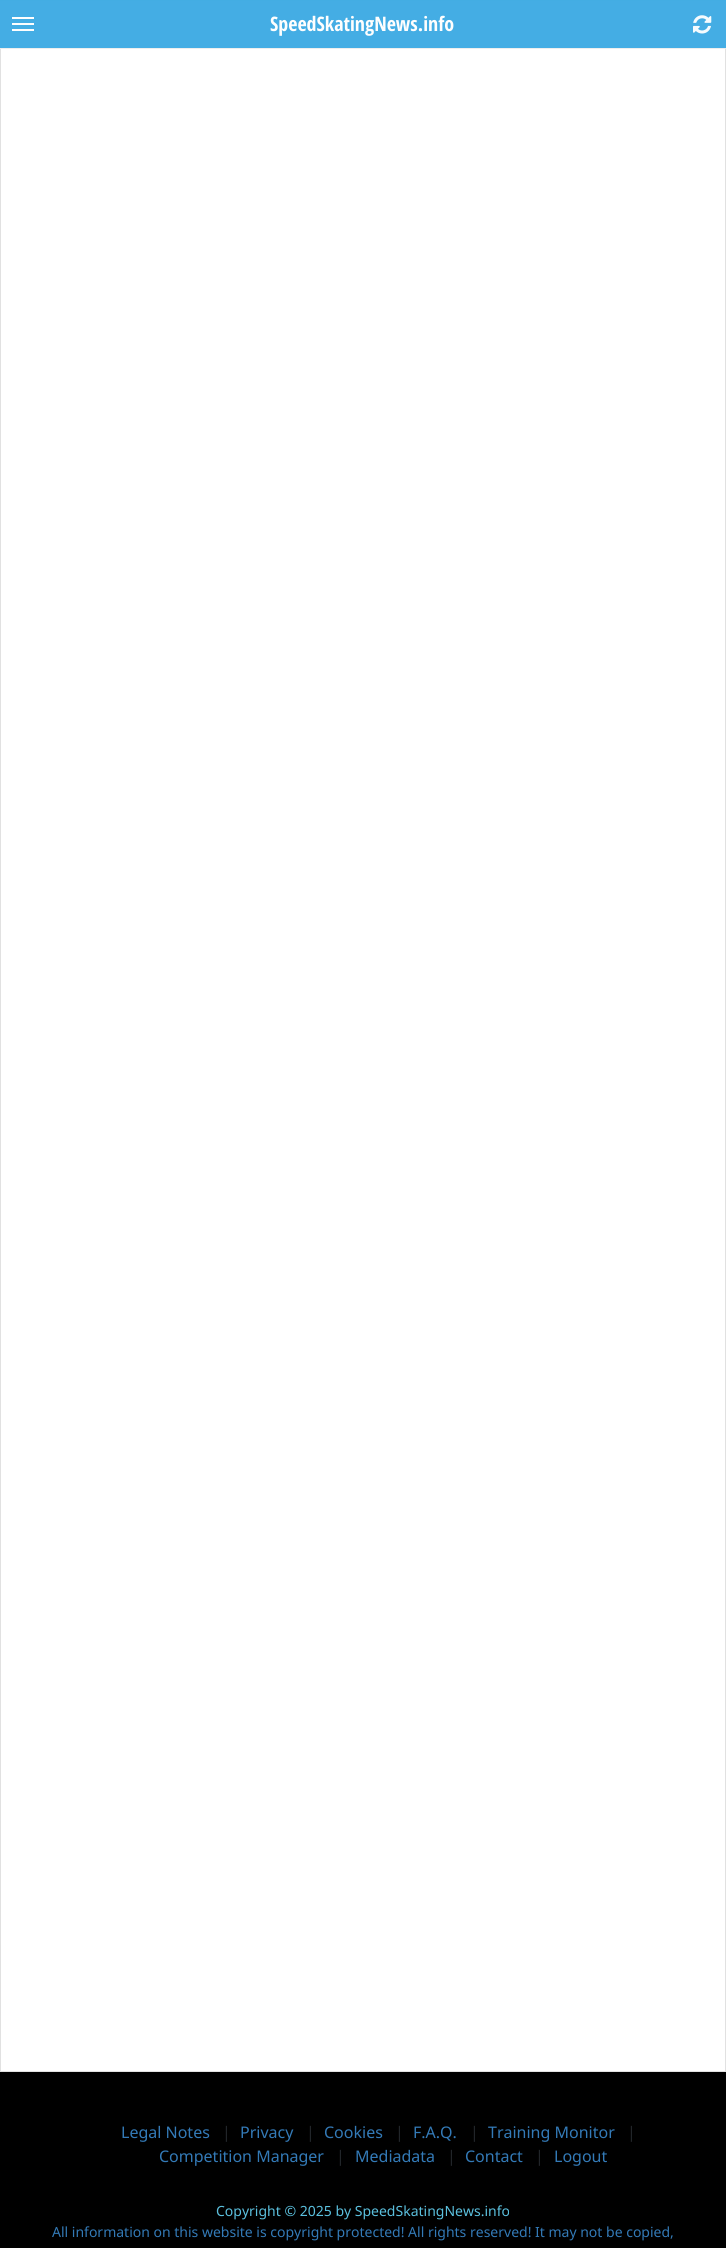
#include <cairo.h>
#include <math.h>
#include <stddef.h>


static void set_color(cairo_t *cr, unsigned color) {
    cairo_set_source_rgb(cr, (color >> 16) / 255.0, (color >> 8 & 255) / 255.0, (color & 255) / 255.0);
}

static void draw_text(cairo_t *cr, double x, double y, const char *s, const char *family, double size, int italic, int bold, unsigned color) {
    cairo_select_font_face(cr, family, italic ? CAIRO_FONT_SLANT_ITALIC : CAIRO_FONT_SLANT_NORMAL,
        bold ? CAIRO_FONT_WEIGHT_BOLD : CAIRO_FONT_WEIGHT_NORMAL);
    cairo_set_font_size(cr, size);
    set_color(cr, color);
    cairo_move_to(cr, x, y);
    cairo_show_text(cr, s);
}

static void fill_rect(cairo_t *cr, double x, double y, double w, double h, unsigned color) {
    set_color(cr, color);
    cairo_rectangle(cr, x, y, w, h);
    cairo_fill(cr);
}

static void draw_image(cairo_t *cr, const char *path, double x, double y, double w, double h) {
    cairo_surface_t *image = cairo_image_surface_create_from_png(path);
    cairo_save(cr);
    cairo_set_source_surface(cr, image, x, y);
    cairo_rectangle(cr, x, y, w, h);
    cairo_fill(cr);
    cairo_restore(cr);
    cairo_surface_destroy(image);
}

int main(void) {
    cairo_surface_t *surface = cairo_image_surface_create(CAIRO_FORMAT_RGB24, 726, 2248);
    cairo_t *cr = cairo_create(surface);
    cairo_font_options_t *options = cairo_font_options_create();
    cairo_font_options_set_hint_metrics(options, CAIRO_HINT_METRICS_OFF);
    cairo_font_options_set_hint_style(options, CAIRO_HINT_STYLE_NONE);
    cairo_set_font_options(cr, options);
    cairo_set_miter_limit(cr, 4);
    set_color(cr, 0xEEEEEE);
    cairo_paint(cr);
    fill_rect(cr, 0, 1, 726, 47, 0x44ADE4);
    fill_rect(cr, 0, 0, 726, 1, 0x43ADE3);
    fill_rect(cr, 12, 17, 22, 2, 0xFEFEFE);
    fill_rect(cr, 12, 23, 22, 2, 0xFEFEFE);
    fill_rect(cr, 12, 29, 22, 2, 0xFEFEFE);
    draw_text(cr, 270, 31, "SpeedSkatingNews.info", "Open Sans Condensed", 20, 0, 1, 0xFEFEFE);
    draw_image(cr, "assets/img1.png", 693, 15, 19, 19);
    fill_rect(cr, 1, 49, 724, 2022, 0xFFFFFF);
    fill_rect(cr, 725, 49, 1, 2023, 0xE1E1E1);
    fill_rect(cr, 0, 2071, 726, 1, 0xE1E1E1);
    fill_rect(cr, 0, 49, 1, 2023, 0xE1E1E1);
    fill_rect(cr, 0, 2072, 726, 176, 0x000000);
    draw_text(cr, 121, 2138, "Legal Notes", "Noto Sans", 16, 0, 0, 0x337AB7);
    draw_text(cr, 222, 2138, "|", "Noto Sans", 16, 0, 0, 0x212529);
    draw_text(cr, 240, 2138, "Privacy", "Noto Sans", 16, 0, 0, 0x337AB7);
    draw_text(cr, 306, 2138, "|", "Noto Sans", 16, 0, 0, 0x212529);
    draw_text(cr, 324, 2138, "Cookies", "Noto Sans", 16, 0, 0, 0x337AB7);
    draw_text(cr, 395, 2138, "|", "Noto Sans", 16, 0, 0, 0x212529);
    draw_text(cr, 413, 2138, "F.A.Q.", "Noto Sans", 16, 0, 0, 0x337AB7);
    draw_text(cr, 470, 2138, "|", "Noto Sans", 16, 0, 0, 0x212529);
    draw_text(cr, 488, 2138, "Training Monitor", "Noto Sans", 16, 0, 0, 0x337AB7);
    draw_text(cr, 627, 2138, "|", "Noto Sans", 16, 0, 0, 0x212529);
    draw_text(cr, 159, 2162, "Competition Manager", "Noto Sans", 16, 0, 0, 0x337AB7);
    draw_text(cr, 336, 2162, "|", "Noto Sans", 16, 0, 0, 0x212529);
    draw_text(cr, 355, 2162, "Mediadata", "Noto Sans", 16, 0, 0, 0x337AB7);
    draw_text(cr, 447, 2162, "|", "Noto Sans", 16, 0, 0, 0x212529);
    draw_text(cr, 465, 2162, "Contact", "Noto Sans", 16, 0, 0, 0x337AB7);
    draw_text(cr, 535, 2162, "|", "Noto Sans", 16, 0, 0, 0x212529);
    draw_text(cr, 554, 2162, "Logout", "Noto Sans", 16, 0, 0, 0x337AB7);
    draw_text(cr, 216, 2216, "Copyright © 2025 by SpeedSkatingNews.info", "Noto Sans", 14, 0, 0, 0x5BC0DE);
    draw_text(cr, 52, 2237, "All information on this website is copyright protected! All rights reserved! It may not be copied,", "Noto Sans", 14, 0, 0, 0x337AB7);
    cairo_surface_write_to_png(surface, "output.png");
    cairo_font_options_destroy(options);
    cairo_destroy(cr);
    cairo_surface_destroy(surface);
    return 0;
}
